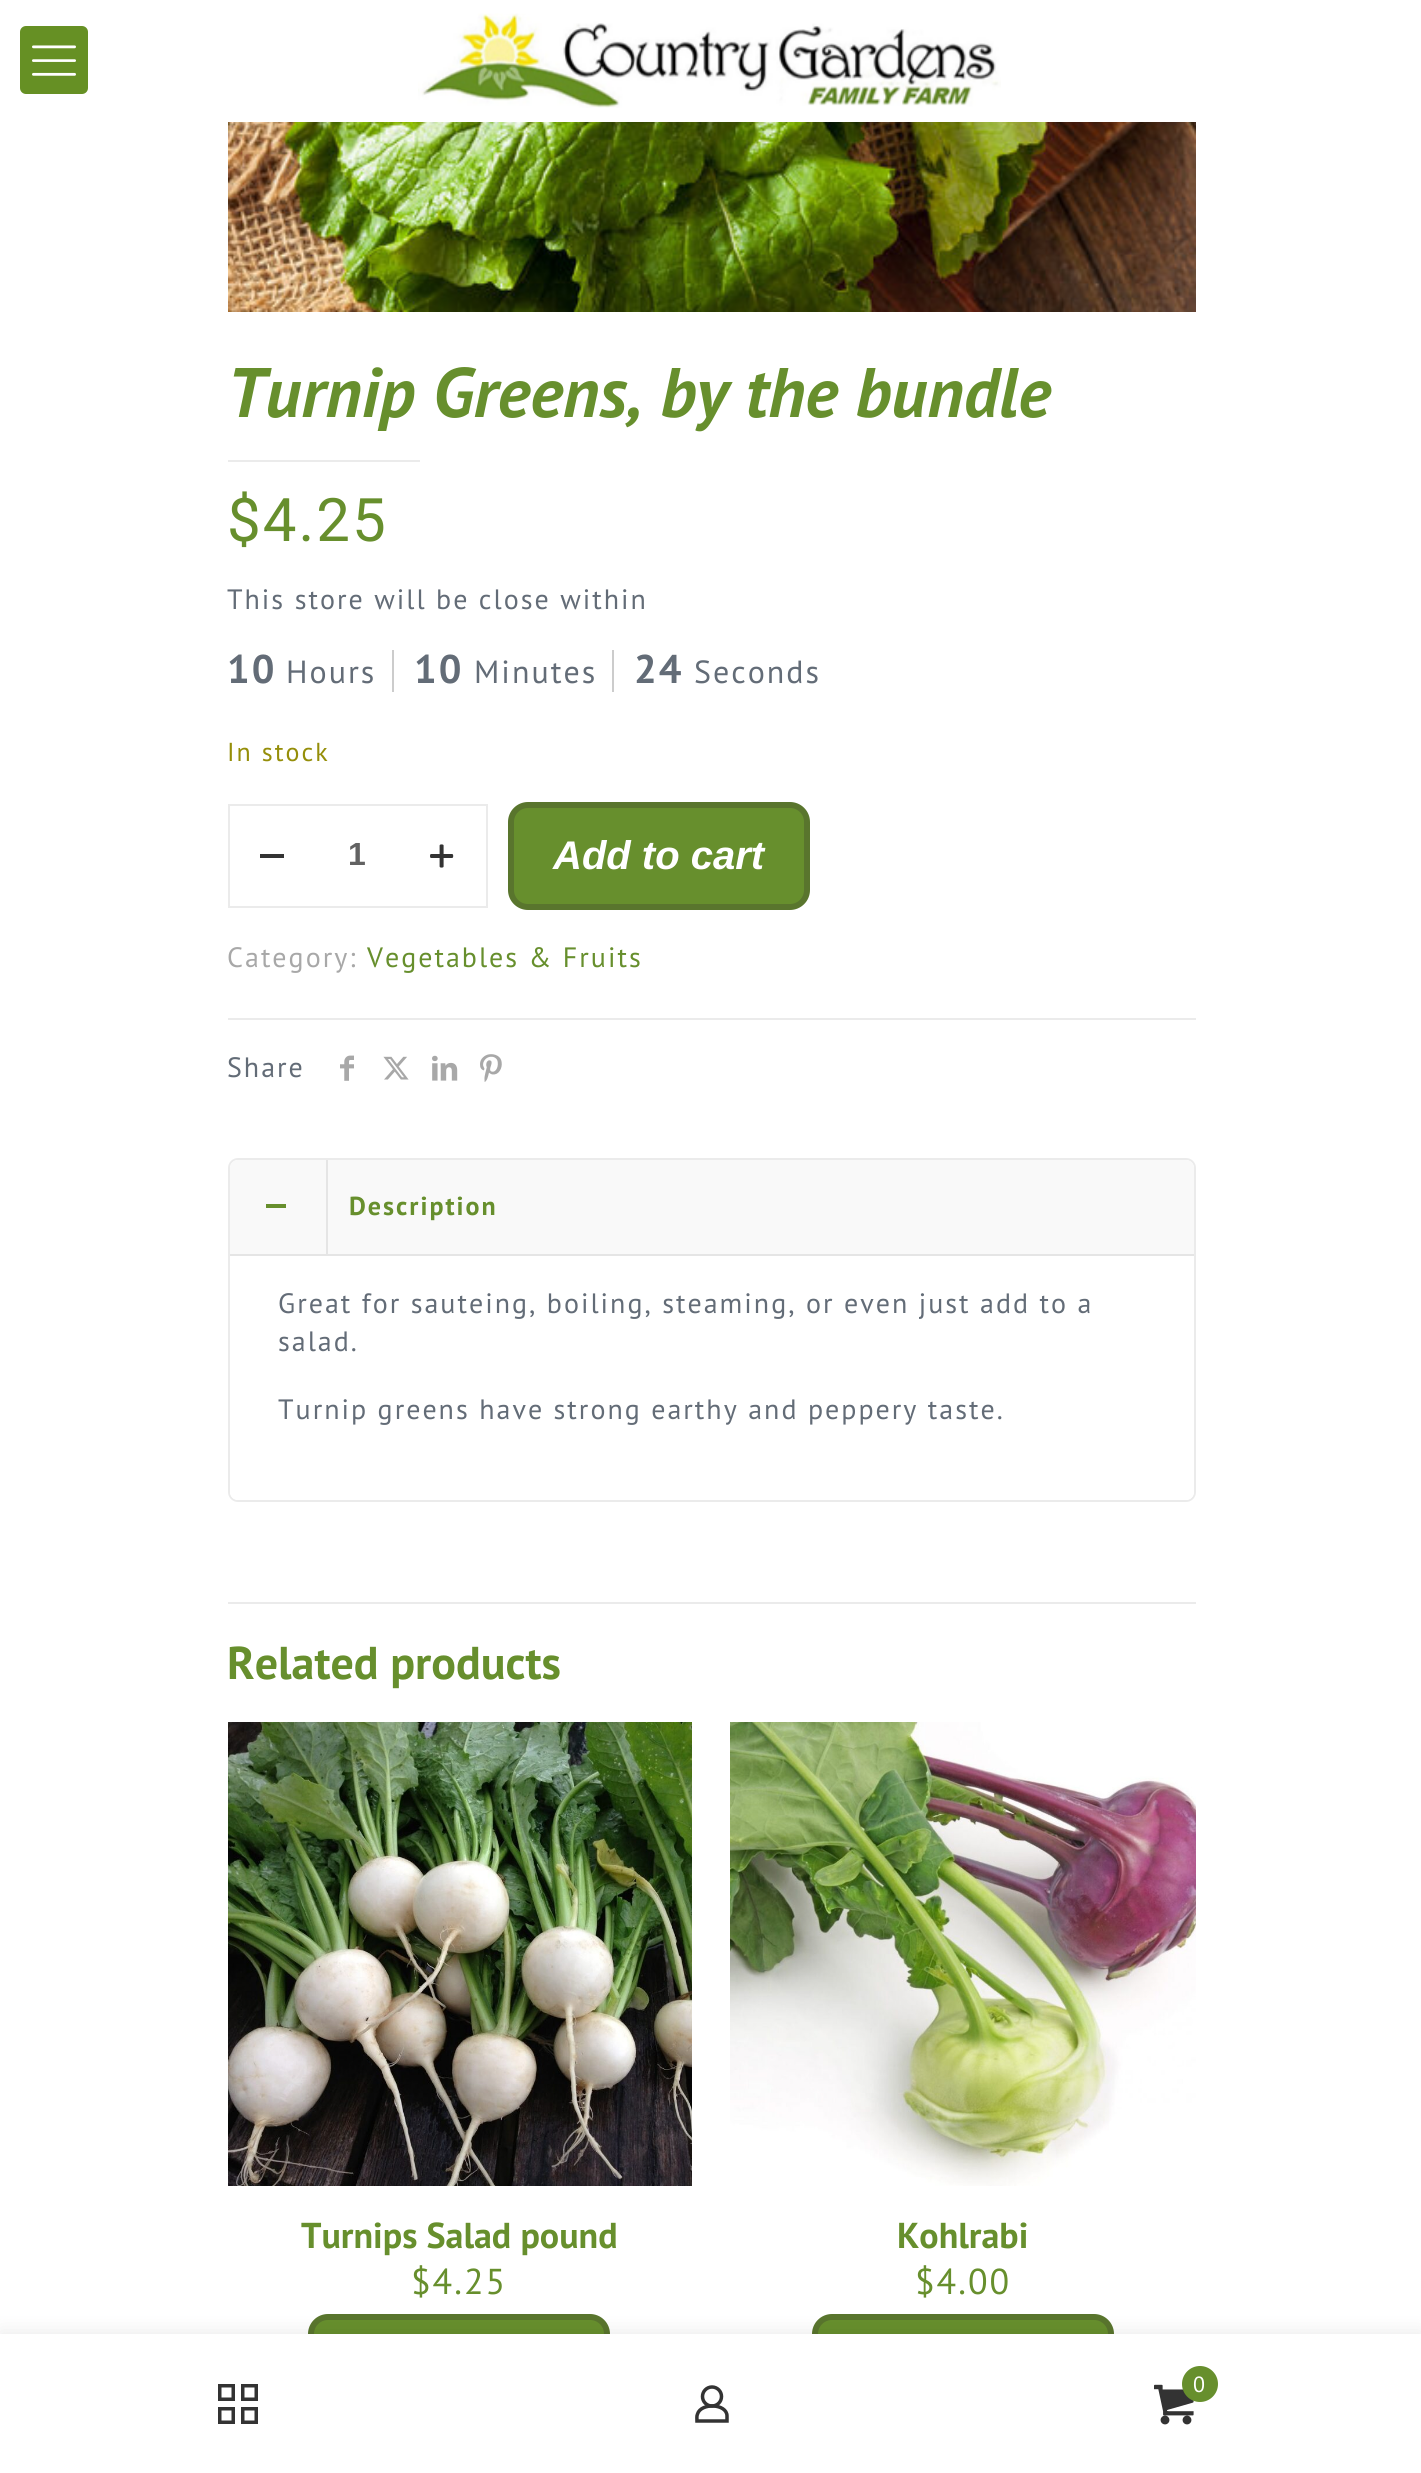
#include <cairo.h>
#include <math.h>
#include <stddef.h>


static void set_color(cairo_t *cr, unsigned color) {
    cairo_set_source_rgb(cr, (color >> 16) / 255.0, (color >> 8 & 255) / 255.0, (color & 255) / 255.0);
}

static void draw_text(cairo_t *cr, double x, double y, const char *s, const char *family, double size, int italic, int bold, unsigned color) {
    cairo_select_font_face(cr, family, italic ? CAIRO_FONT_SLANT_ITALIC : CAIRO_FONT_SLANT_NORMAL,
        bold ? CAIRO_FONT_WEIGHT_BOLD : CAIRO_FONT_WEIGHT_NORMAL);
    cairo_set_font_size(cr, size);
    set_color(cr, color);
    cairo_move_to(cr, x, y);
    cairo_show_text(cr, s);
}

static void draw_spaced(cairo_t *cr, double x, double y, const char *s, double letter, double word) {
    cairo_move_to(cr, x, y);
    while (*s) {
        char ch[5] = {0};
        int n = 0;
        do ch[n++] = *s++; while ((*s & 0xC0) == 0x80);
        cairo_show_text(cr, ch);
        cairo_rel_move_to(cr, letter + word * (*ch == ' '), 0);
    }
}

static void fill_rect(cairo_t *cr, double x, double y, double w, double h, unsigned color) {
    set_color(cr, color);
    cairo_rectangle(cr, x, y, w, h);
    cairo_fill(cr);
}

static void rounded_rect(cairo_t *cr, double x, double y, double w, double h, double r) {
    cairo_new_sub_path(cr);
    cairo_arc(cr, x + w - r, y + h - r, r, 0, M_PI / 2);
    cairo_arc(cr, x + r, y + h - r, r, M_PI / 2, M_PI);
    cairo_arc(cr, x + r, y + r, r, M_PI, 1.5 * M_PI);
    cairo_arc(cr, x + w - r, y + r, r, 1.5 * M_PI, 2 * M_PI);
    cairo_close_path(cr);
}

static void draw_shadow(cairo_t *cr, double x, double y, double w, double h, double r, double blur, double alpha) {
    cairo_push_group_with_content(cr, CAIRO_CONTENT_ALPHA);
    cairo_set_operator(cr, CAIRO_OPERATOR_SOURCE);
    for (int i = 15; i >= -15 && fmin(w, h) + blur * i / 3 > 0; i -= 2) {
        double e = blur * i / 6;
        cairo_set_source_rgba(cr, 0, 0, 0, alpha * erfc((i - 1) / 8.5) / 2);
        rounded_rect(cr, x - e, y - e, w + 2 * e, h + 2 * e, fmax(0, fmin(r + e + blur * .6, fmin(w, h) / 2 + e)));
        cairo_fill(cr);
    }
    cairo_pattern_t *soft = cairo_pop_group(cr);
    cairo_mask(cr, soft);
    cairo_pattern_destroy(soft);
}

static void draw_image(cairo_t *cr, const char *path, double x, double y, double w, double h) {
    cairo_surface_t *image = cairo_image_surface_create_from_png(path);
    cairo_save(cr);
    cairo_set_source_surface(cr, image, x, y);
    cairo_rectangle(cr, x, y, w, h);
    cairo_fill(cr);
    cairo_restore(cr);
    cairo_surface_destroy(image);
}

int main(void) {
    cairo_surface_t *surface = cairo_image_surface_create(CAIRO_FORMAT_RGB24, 1421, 2473);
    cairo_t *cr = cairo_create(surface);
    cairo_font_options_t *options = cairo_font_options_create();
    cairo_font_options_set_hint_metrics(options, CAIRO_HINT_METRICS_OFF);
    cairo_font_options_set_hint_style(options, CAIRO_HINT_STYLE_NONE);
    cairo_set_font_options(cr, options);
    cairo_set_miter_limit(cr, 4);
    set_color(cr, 0xFFFFFF);
    cairo_paint(cr);
    set_color(cr, 0x669024);
    rounded_rect(cr, 20, 26, 68, 68, 6);
    cairo_fill(cr);
    draw_image(cr, "assets/img1.png", 32, 45, 44, 31);
    draw_image(cr, "assets/img2.png", 418, 13, 583, 95);
    draw_image(cr, "assets/img3.png", 228, 122, 968, 190);
    draw_text(cr, 227, 417, "Turnip Greens, by the bundle", "PT Sans", 70, 1, 1, 0x678F2D);
    fill_rect(cr, 228, 460, 192, 2, 0xEBEBEB);
    cairo_select_font_face(cr, "Roboto", CAIRO_FONT_SLANT_NORMAL, CAIRO_FONT_WEIGHT_NORMAL);
    cairo_set_font_size(cr, 60);
    set_color(cr, 0x678F2D);
    draw_spaced(cr, 227, 541, "$4.25", 2, 0);
    cairo_select_font_face(cr, "PT Sans", CAIRO_FONT_SLANT_NORMAL, CAIRO_FONT_WEIGHT_NORMAL);
    cairo_set_font_size(cr, 28);
    set_color(cr, 0x636C77);
    draw_spaced(cr, 227, 609, "This store will be close within", 2, 0);
    fill_rect(cr, 392, 650, 2, 42, 0xCCCCCC);
    cairo_select_font_face(cr, "PT Sans", CAIRO_FONT_SLANT_NORMAL, CAIRO_FONT_WEIGHT_BOLD);
    cairo_set_font_size(cr, 40);
    set_color(cr, 0x636C77);
    draw_spaced(cr, 227, 683, "10", 2, 0);
    cairo_select_font_face(cr, "PT Sans", CAIRO_FONT_SLANT_NORMAL, CAIRO_FONT_WEIGHT_NORMAL);
    cairo_set_font_size(cr, 32);
    draw_spaced(cr, 286, 683, "Hours", 2, 0);
    fill_rect(cr, 612, 650, 2, 42, 0xCCCCCC);
    cairo_select_font_face(cr, "PT Sans", CAIRO_FONT_SLANT_NORMAL, CAIRO_FONT_WEIGHT_BOLD);
    cairo_set_font_size(cr, 40);
    set_color(cr, 0x636C77);
    draw_spaced(cr, 414, 683, "10", 2, 0);
    cairo_select_font_face(cr, "PT Sans", CAIRO_FONT_SLANT_NORMAL, CAIRO_FONT_WEIGHT_NORMAL);
    cairo_set_font_size(cr, 32);
    draw_spaced(cr, 474, 683, "Minutes", 2, 0);
    cairo_select_font_face(cr, "PT Sans", CAIRO_FONT_SLANT_NORMAL, CAIRO_FONT_WEIGHT_BOLD);
    cairo_set_font_size(cr, 40);
    draw_spaced(cr, 634, 683, "24", 2, 0);
    cairo_select_font_face(cr, "PT Sans", CAIRO_FONT_SLANT_NORMAL, CAIRO_FONT_WEIGHT_NORMAL);
    cairo_set_font_size(cr, 32);
    draw_spaced(cr, 694, 683, "Seconds", 2, 0);
    cairo_set_font_size(cr, 26);
    set_color(cr, 0x958E09);
    draw_spaced(cr, 227, 761, "In stock", 2, 0);
    cairo_rectangle(cr, 229, 805, 258, 102);
    set_color(cr, 0xEBEBEB);
    cairo_stroke(cr);
    fill_rect(cr, 260, 854, 24, 4, 0x333333);
    draw_text(cr, 348, 865, "1", "Liberation Sans", 32, 0, 1, 0x626262);
    draw_image(cr, "assets/img4.png", 430, 844, 24, 24);
    set_color(cr, 0x678F2D);
    rounded_rect(cr, 511, 805, 296, 102, 17);
    cairo_fill_preserve(cr);
    set_color(cr, 0x59752D);
    cairo_set_line_width(cr, 6);
    cairo_stroke(cr);
    draw_text(cr, 553, 869, "Add to cart", "Liberation Sans", 40, 1, 1, 0xFFFFFF);
    cairo_select_font_face(cr, "PT Sans", CAIRO_FONT_SLANT_NORMAL, CAIRO_FONT_WEIGHT_NORMAL);
    cairo_set_font_size(cr, 28);
    set_color(cr, 0xA8A8A8);
    draw_spaced(cr, 227, 967, "Category:", 2, 0);
    set_color(cr, 0x678F2D);
    draw_spaced(cr, 367, 967, "Vegetables & Fruits", 2, 0);
    fill_rect(cr, 228, 1018, 968, 2, 0xEBEBEB);
    set_color(cr, 0x636C77);
    draw_spaced(cr, 227, 1077, "Share", 2, 0);
    draw_image(cr, "assets/img5.png", 340, 1055, 14, 26);
    draw_image(cr, "assets/img6.png", 383, 1056, 26, 24);
    draw_image(cr, "assets/img7.png", 432, 1055, 26, 26);
    draw_image(cr, "assets/img8.png", 480, 1054, 22, 28);
    rounded_rect(cr, 229, 1159, 966, 342, 9);
    set_color(cr, 0xEBEBEB);
    cairo_set_line_width(cr, 2);
    cairo_stroke(cr);
    set_color(cr, 0xF9F9F9);
    cairo_new_path(cr);
    cairo_move_to(cr, 238, 1160);
    cairo_line_to(cr, 1186, 1160);
    cairo_curve_to(cr, 1190.5, 1160, 1194, 1163.5, 1194, 1168);
    cairo_line_to(cr, 1194, 1256);
    cairo_line_to(cr, 230, 1256);
    cairo_line_to(cr, 230, 1168);
    cairo_curve_to(cr, 230, 1163.5, 233.5, 1160, 238, 1160);
    cairo_close_path(cr);
    cairo_fill(cr);
    fill_rect(cr, 230, 1254, 964, 2, 0xE5E5E5);
    fill_rect(cr, 266, 1204, 20, 4, 0x678F2D);
    fill_rect(cr, 326, 1160, 2, 94, 0xE5E5E5);
    cairo_select_font_face(cr, "PT Sans", CAIRO_FONT_SLANT_NORMAL, CAIRO_FONT_WEIGHT_BOLD);
    cairo_set_font_size(cr, 26);
    set_color(cr, 0x678F2D);
    draw_spaced(cr, 349, 1215, "Description", 2, 0);
    set_color(cr, 0xFFFFFF);
    cairo_new_path(cr);
    cairo_move_to(cr, 230, 1256);
    cairo_line_to(cr, 1194, 1256);
    cairo_line_to(cr, 1194, 1492);
    cairo_curve_to(cr, 1194, 1496.5, 1190.5, 1500, 1186, 1500);
    cairo_line_to(cr, 238, 1500);
    cairo_curve_to(cr, 233.5, 1500, 230, 1496.5, 230, 1492);
    cairo_close_path(cr);
    cairo_fill(cr);
    cairo_select_font_face(cr, "PT Sans", CAIRO_FONT_SLANT_NORMAL, CAIRO_FONT_WEIGHT_NORMAL);
    cairo_set_font_size(cr, 28);
    set_color(cr, 0x636C77);
    draw_spaced(cr, 278, 1313, "Great for sauteing, boiling, steaming, or even just add to a", 2, 0);
    draw_spaced(cr, 278, 1351, "salad.", 2, 0);
    draw_spaced(cr, 278, 1419, "Turnip greens have strong earthy and peppery taste.", 2, 0);
    fill_rect(cr, 228, 1602, 968, 2, 0xEBEBEB);
    draw_text(cr, 227, 1679, "Related products", "PT Sans", 46, 0, 1, 0x678F2D);
    draw_image(cr, "assets/img9.png", 228, 1722, 464, 464);
    draw_text(cr, 301, 2248, "Turnips Salad pound", "PT Sans", 36, 0, 1, 0x678F2D);
    cairo_select_font_face(cr, "PT Sans", CAIRO_FONT_SLANT_NORMAL, CAIRO_FONT_WEIGHT_NORMAL);
    draw_spaced(cr, 411, 2294, "$4.25", 2, 0);
    rounded_rect(cr, 311, 2317, 296, 102, 17);
    cairo_fill_preserve(cr);
    set_color(cr, 0x59752D);
    cairo_set_line_width(cr, 6);
    cairo_stroke(cr);
    draw_image(cr, "assets/img10.png", 730, 1722, 466, 464);
    draw_text(cr, 897, 2248, "Kohlrabi", "PT Sans", 36, 0, 1, 0x678F2D);
    cairo_select_font_face(cr, "PT Sans", CAIRO_FONT_SLANT_NORMAL, CAIRO_FONT_WEIGHT_NORMAL);
    draw_spaced(cr, 915, 2294, "$4.00", 2, 0);
    rounded_rect(cr, 815, 2317, 296, 102, 17);
    cairo_fill_preserve(cr);
    set_color(cr, 0x59752D);
    cairo_stroke(cr);
    set_color(cr, 0x000000);
    draw_shadow(cr, 0, 2334, 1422, 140, 0, 10, 0.1);
    fill_rect(cr, 0, 2334, 1421, 139, 0xFFFFFF);
    cairo_rectangle(cr, 242.75, 2385.75, 13.5, 13.5);
    set_color(cr, 0x333333);
    cairo_set_line_width(cr, 3.5);
    cairo_stroke(cr);
    cairo_rectangle(cr, 219.75, 2385.75, 13.5, 13.5);
    cairo_stroke(cr);
    cairo_rectangle(cr, 219.75, 2408.75, 13.5, 13.5);
    cairo_stroke(cr);
    cairo_rectangle(cr, 242.75, 2408.75, 13.5, 13.5);
    cairo_stroke(cr);
    cairo_arc(cr, 712, 2396.5, 9.5, 0, 2 * M_PI);
    cairo_stroke(cr);
    cairo_new_path(cr);
    cairo_move_to(cr, 727, 2416);
    cairo_line_to(cr, 727, 2421);
    cairo_line_to(cr, 697, 2421);
    cairo_curve_to(cr, 697, 2419, 696.5, 2416, 697.5, 2414);
    cairo_curve_to(cr, 701, 2402.5, 727, 2403.5, 727, 2416);
    cairo_close_path(cr);
    cairo_stroke(cr);
    draw_image(cr, "assets/img11.png", 1154, 2384, 40, 41);
    set_color(cr, 0x678F2D);
    cairo_arc(cr, 1200, 2384, 18, 0, 2 * M_PI);
    cairo_fill(cr);
    cairo_set_font_size(cr, 22);
    set_color(cr, 0xFFFFFF);
    draw_spaced(cr, 1193, 2392, "0", 2, 0);
    cairo_surface_write_to_png(surface, "output.png");
    cairo_font_options_destroy(options);
    cairo_destroy(cr);
    cairo_surface_destroy(surface);
    return 0;
}
